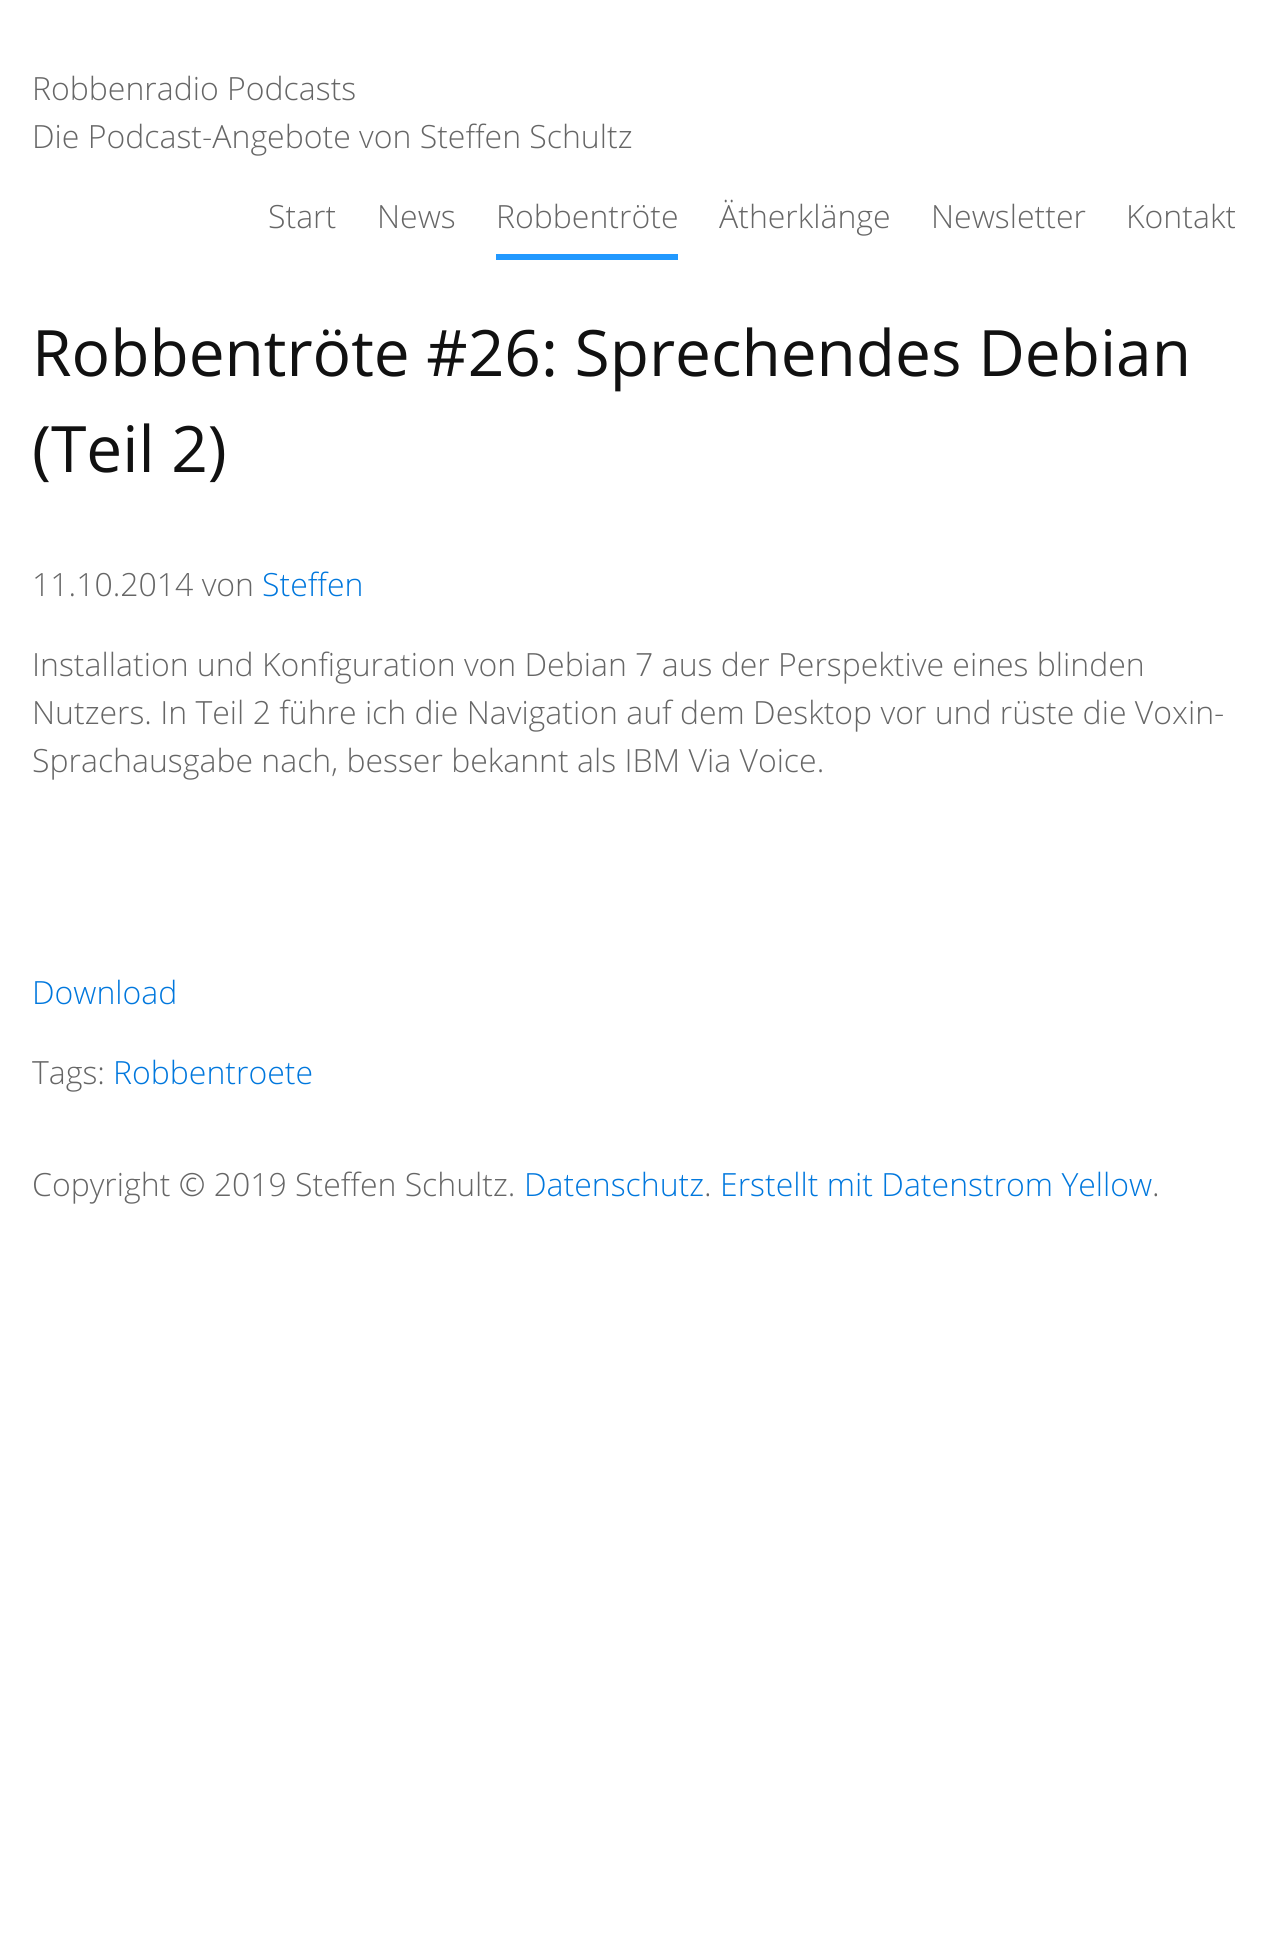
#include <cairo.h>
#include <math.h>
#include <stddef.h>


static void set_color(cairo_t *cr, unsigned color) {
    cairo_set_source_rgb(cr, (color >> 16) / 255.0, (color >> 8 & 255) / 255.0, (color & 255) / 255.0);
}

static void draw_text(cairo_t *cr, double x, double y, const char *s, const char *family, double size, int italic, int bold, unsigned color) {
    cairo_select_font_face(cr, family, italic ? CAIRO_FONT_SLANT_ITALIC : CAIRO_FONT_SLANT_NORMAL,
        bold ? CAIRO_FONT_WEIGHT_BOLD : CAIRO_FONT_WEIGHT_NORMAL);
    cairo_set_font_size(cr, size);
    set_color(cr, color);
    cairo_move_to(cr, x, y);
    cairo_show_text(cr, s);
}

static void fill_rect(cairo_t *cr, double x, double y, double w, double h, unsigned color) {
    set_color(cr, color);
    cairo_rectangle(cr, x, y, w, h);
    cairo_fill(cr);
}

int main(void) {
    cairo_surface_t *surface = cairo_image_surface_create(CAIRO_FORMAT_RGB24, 1268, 1933);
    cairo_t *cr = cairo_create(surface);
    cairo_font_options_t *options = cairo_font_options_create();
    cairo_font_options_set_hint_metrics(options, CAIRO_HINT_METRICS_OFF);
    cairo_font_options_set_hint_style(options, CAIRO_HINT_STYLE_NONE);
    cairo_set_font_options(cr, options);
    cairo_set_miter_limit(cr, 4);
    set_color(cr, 0xFFFFFF);
    cairo_paint(cr);
    draw_text(cr, 32, 100, "Robbenradio Podcasts", "Open Sans Light", 32, 0, 0, 0x666666);
    draw_text(cr, 32, 148, "Die Podcast-Angebote von Steffen Schultz", "Open Sans Light", 32, 0, 0, 0x666666);
    draw_text(cr, 268, 228, "Start", "Open Sans Light", 32, 0, 0, 0x666666);
    draw_text(cr, 377, 228, "News", "Open Sans Light", 32, 0, 0, 0x666666);
    draw_text(cr, 496, 228, "Robbentröte", "Open Sans Light", 32, 0, 0, 0x666666);
    fill_rect(cr, 496, 254, 182, 6, 0x2299FF);
    draw_text(cr, 719, 228, "Ätherklänge", "Open Sans Light", 32, 0, 0, 0x666666);
    draw_text(cr, 931, 228, "Newsletter", "Open Sans Light", 32, 0, 0, 0x666666);
    draw_text(cr, 1126, 228, "Kontakt", "Open Sans Light", 32, 0, 0, 0x666666);
    draw_text(cr, 32, 376, "Robbentröte #26: Sprechendes Debian", "Open Sans", 64, 0, 0, 0x111111);
    draw_text(cr, 32, 472, "(Teil 2)", "Open Sans", 64, 0, 0, 0x111111);
    draw_text(cr, 32, 596, "11.10.2014 von", "Open Sans Light", 32, 0, 0, 0x666666);
    draw_text(cr, 262, 596, "Steffen", "Open Sans Light", 32, 0, 0, 0x0077DD);
    draw_text(cr, 32, 676, "Installation und Konfiguration von Debian 7 aus der Perspektive eines blinden", "Open Sans Light", 32, 0, 0, 0x666666);
    draw_text(cr, 32, 724, "Nutzers. In Teil 2 führe ich die Navigation auf dem Desktop vor und rüste die Voxin-", "Open Sans Light", 32, 0, 0, 0x666666);
    draw_text(cr, 32, 772, "Sprachausgabe nach, besser bekannt als IBM Via Voice.", "Open Sans Light", 32, 0, 0, 0x666666);
    draw_text(cr, 32, 1004, "Download", "Open Sans Light", 32, 0, 0, 0x0077DD);
    draw_text(cr, 32, 1084, "Tags:", "Open Sans Light", 32, 0, 0, 0x666666);
    draw_text(cr, 113, 1084, "Robbentroete", "Open Sans Light", 32, 0, 0, 0x0077DD);
    draw_text(cr, 32, 1196, "Copyright © 2019 Steffen Schultz.", "Open Sans Light", 32, 0, 0, 0x666666);
    draw_text(cr, 524, 1196, "Datenschutz", "Open Sans Light", 32, 0, 0, 0x0077DD);
    draw_text(cr, 704, 1196, ".", "Open Sans Light", 32, 0, 0, 0x666666);
    draw_text(cr, 720, 1196, "Erstellt mit Datenstrom Yellow", "Open Sans Light", 32, 0, 0, 0x0077DD);
    draw_text(cr, 1152, 1196, ".", "Open Sans Light", 32, 0, 0, 0x666666);
    cairo_surface_write_to_png(surface, "output.png");
    cairo_font_options_destroy(options);
    cairo_destroy(cr);
    cairo_surface_destroy(surface);
    return 0;
}
